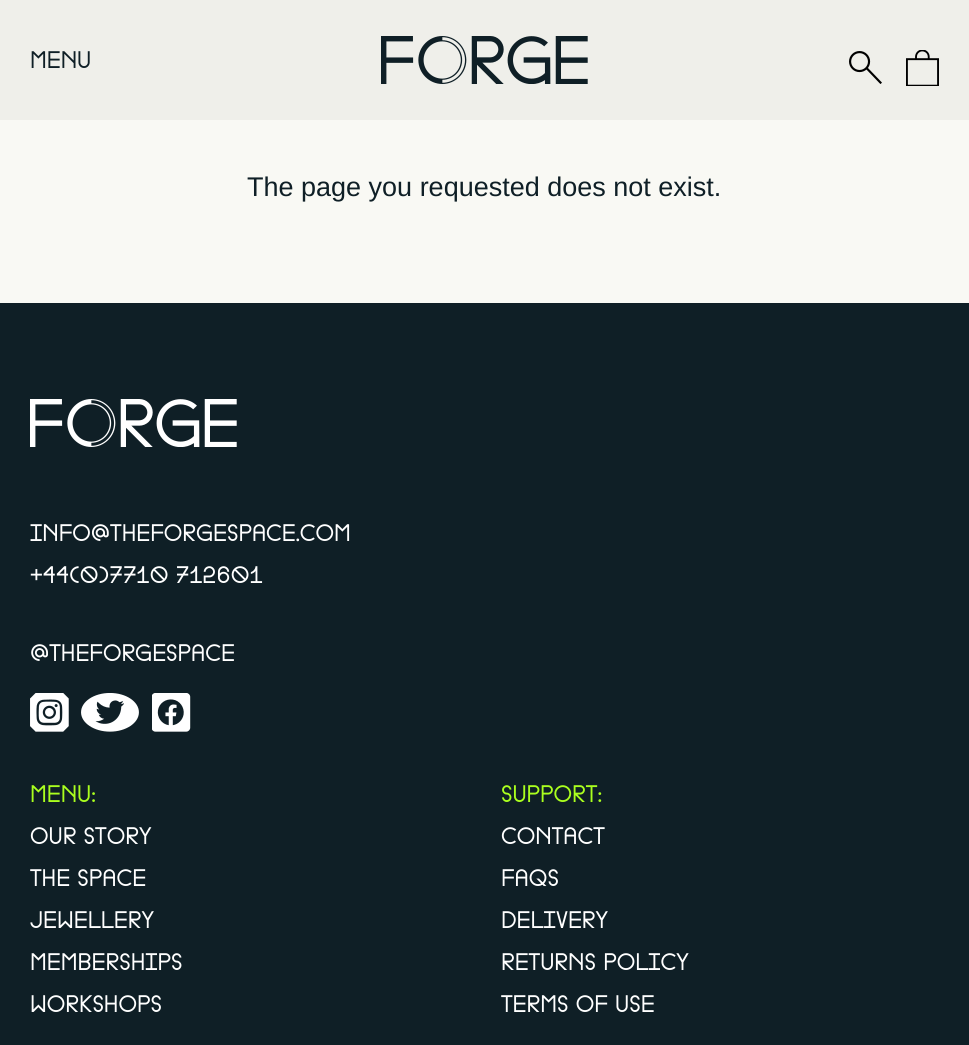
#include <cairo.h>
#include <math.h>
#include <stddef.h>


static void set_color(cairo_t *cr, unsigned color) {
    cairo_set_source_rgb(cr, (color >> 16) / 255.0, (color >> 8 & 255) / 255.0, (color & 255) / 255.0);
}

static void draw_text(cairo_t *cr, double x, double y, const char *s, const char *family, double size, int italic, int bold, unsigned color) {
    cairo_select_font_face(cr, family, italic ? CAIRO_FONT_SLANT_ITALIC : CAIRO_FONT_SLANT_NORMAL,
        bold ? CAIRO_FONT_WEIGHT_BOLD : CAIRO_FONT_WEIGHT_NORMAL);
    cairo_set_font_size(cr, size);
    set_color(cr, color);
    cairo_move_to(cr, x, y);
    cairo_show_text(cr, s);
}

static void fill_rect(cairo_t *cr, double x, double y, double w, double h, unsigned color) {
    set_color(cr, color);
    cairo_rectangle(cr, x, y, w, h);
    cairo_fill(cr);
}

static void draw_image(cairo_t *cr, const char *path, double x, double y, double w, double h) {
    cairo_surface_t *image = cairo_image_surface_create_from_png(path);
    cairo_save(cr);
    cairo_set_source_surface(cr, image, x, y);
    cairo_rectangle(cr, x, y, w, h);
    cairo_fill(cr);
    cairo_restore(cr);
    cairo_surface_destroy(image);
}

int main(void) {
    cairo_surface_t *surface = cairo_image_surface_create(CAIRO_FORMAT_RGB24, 969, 1045);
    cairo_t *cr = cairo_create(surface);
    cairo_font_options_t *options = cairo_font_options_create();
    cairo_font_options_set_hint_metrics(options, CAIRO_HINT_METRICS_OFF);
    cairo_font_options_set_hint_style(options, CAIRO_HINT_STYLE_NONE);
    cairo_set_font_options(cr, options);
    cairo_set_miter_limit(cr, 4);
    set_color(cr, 0xF9F9F4);
    cairo_paint(cr);
    fill_rect(cr, 0, 0, 969, 120, 0xEFEFEA);
    draw_text(cr, 30, 68, "MENU", "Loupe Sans", 24, 0, 0, 0x0F1F26);
    draw_image(cr, "assets/img1.png", 381, 36, 207, 48);
    draw_image(cr, "assets/img2.png", 849, 51, 33, 33);
    draw_image(cr, "assets/img3.png", 906, 50, 33, 36);
    draw_text(cr, 247, 196, "The page you requested does not exist.", "Liberation Sans", 27, 0, 0, 0x0F1F26);
    fill_rect(cr, 0, 303, 969, 742, 0x0F1F26);
    draw_image(cr, "assets/img4.png", 30, 399, 207, 48);
    draw_text(cr, 30, 541, "INFO@THEFORGESPACE.COM", "Loupe Sans", 24, 0, 0, 0xFFFFFF);
    draw_text(cr, 30, 583, "+44(0)7710 712601", "Loupe Sans", 24, 0, 0, 0xFFFFFF);
    draw_text(cr, 30, 661, "@THEFORGESPACE", "Loupe Sans", 24, 0, 0, 0xFFFFFF);
    draw_image(cr, "assets/img5.png", 30, 693, 39, 39);
    draw_image(cr, "assets/img6.png", 81, 693, 58, 39);
    draw_image(cr, "assets/img7.png", 152, 693, 39, 39);
    draw_text(cr, 30, 802, "MENU:", "Loupe Sans", 24, 0, 0, 0xAAFF1E);
    draw_text(cr, 30, 844, "OUR STORY", "Loupe Sans", 24, 0, 0, 0xFFFFFF);
    draw_text(cr, 30, 886, "THE SPACE", "Loupe Sans", 24, 0, 0, 0xFFFFFF);
    draw_text(cr, 30, 928, "JEWELLERY", "Loupe Sans", 24, 0, 0, 0xFFFFFF);
    draw_text(cr, 30, 970, "MEMBERSHIPS", "Loupe Sans", 24, 0, 0, 0xFFFFFF);
    draw_text(cr, 30, 1012, "WORKSHOPS", "Loupe Sans", 24, 0, 0, 0xFFFFFF);
    draw_text(cr, 501, 802, "SUPPORT:", "Loupe Sans", 24, 0, 0, 0xAAFF1E);
    draw_text(cr, 501, 844, "CONTACT", "Loupe Sans", 24, 0, 0, 0xFFFFFF);
    draw_text(cr, 501, 886, "FAQS", "Loupe Sans", 24, 0, 0, 0xFFFFFF);
    draw_text(cr, 501, 928, "DELIVERY", "Loupe Sans", 24, 0, 0, 0xFFFFFF);
    draw_text(cr, 501, 970, "RETURNS POLICY", "Loupe Sans", 24, 0, 0, 0xFFFFFF);
    draw_text(cr, 501, 1012, "TERMS OF USE", "Loupe Sans", 24, 0, 0, 0xFFFFFF);
    cairo_surface_write_to_png(surface, "output.png");
    cairo_font_options_destroy(options);
    cairo_destroy(cr);
    cairo_surface_destroy(surface);
    return 0;
}
